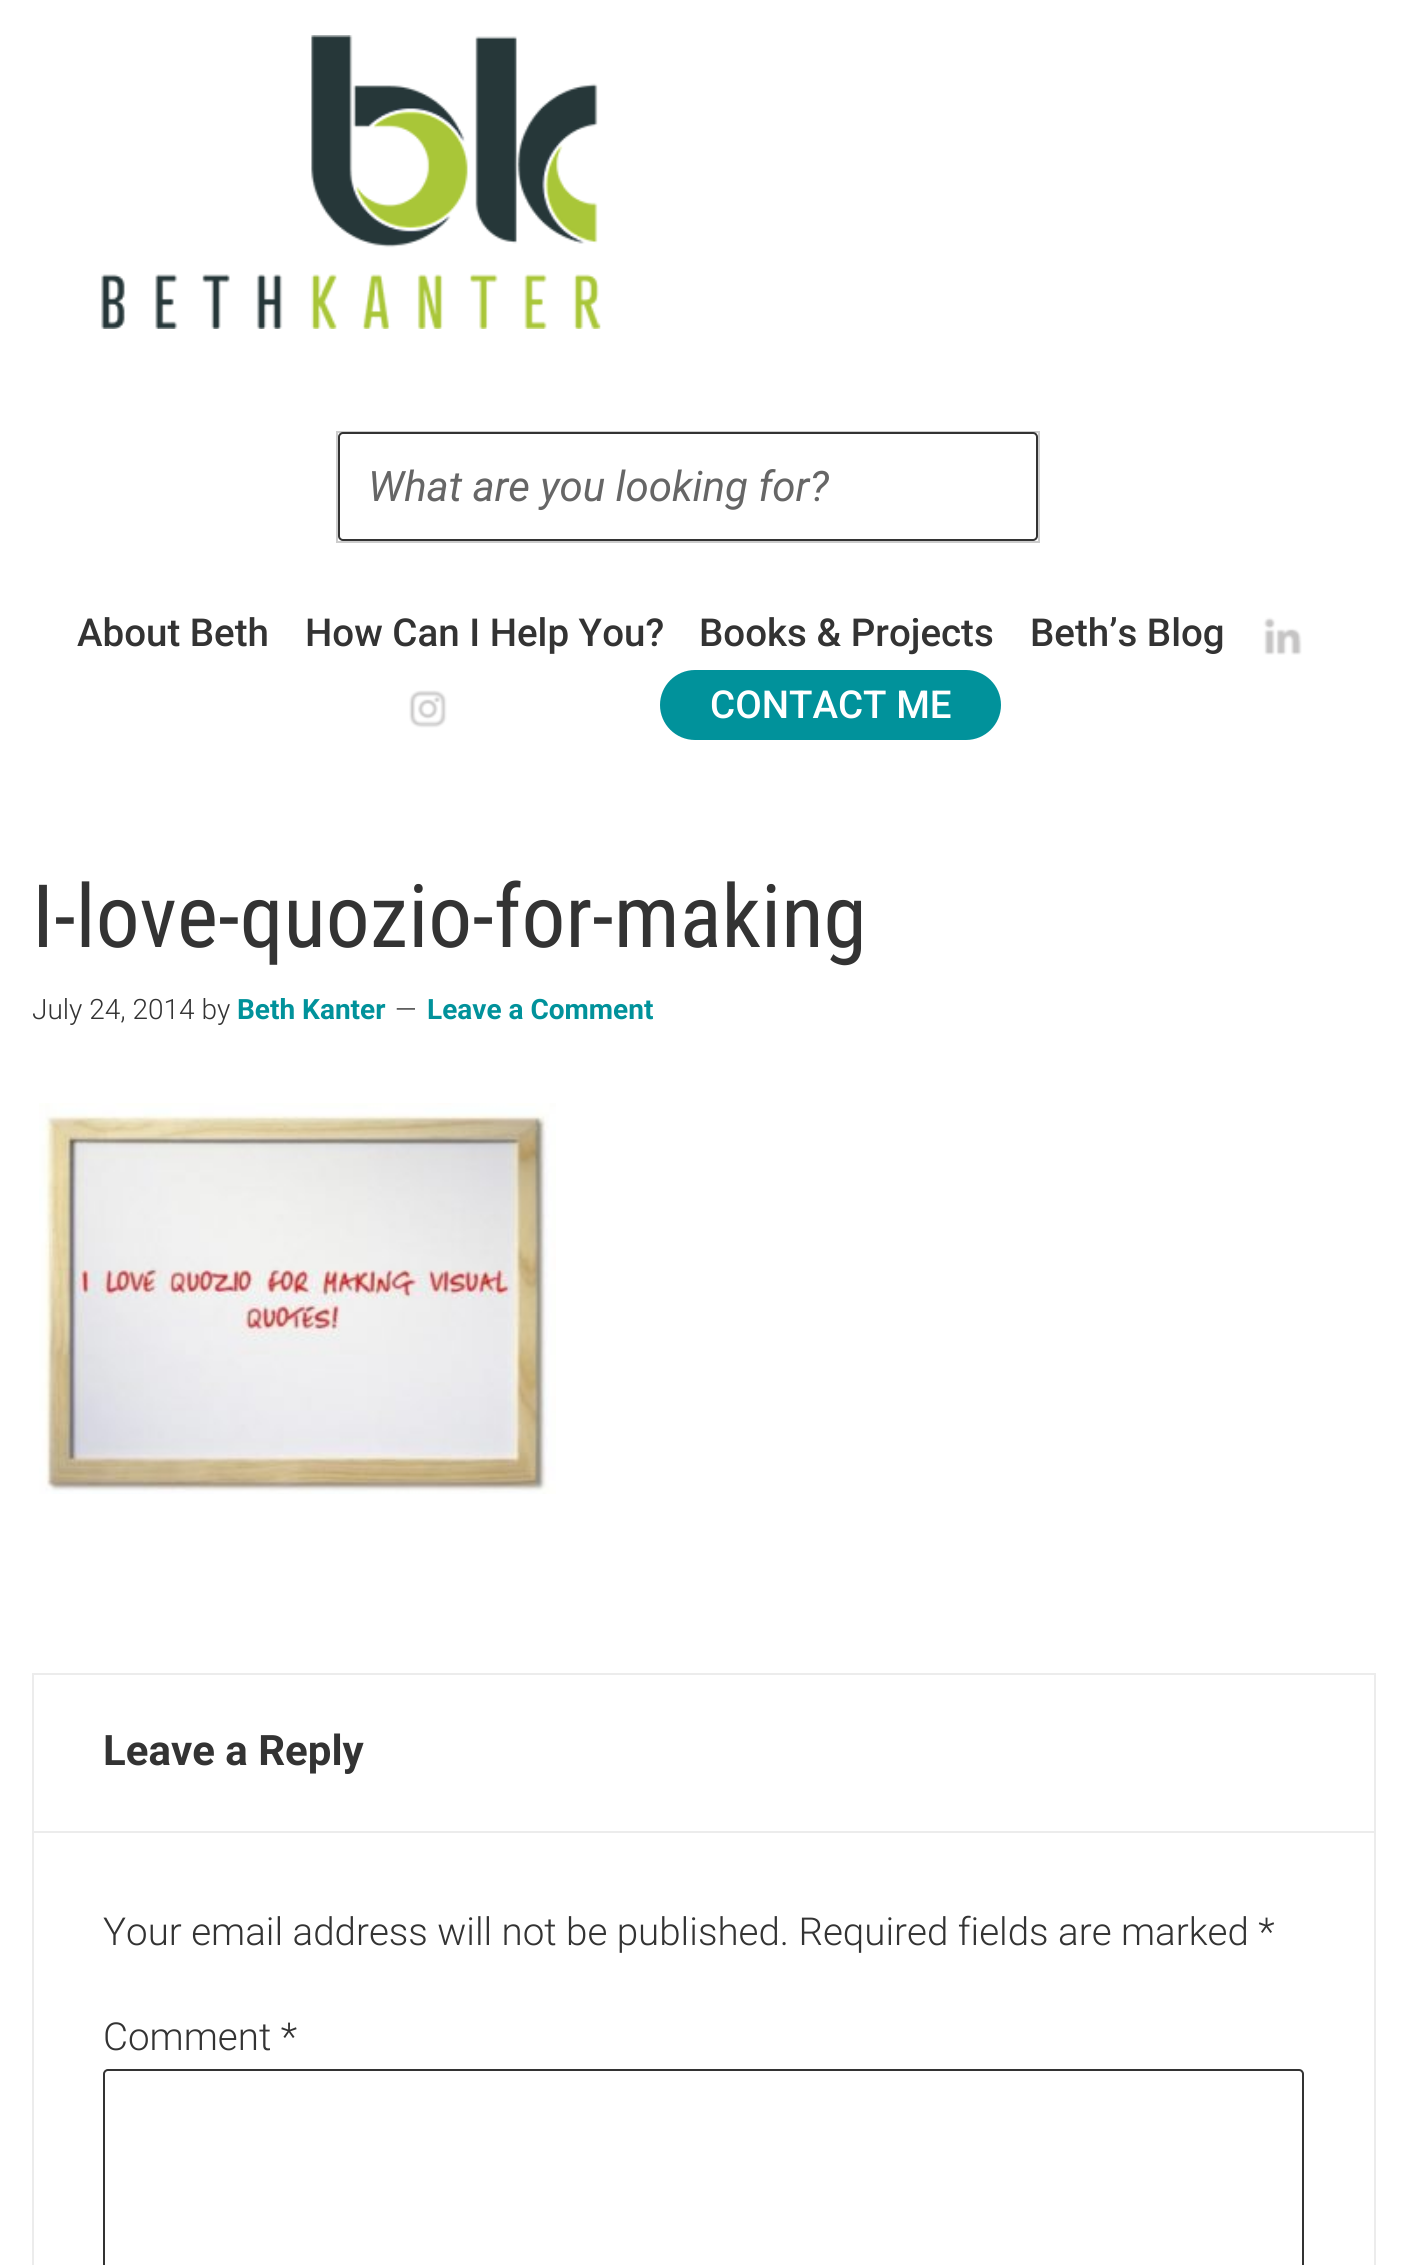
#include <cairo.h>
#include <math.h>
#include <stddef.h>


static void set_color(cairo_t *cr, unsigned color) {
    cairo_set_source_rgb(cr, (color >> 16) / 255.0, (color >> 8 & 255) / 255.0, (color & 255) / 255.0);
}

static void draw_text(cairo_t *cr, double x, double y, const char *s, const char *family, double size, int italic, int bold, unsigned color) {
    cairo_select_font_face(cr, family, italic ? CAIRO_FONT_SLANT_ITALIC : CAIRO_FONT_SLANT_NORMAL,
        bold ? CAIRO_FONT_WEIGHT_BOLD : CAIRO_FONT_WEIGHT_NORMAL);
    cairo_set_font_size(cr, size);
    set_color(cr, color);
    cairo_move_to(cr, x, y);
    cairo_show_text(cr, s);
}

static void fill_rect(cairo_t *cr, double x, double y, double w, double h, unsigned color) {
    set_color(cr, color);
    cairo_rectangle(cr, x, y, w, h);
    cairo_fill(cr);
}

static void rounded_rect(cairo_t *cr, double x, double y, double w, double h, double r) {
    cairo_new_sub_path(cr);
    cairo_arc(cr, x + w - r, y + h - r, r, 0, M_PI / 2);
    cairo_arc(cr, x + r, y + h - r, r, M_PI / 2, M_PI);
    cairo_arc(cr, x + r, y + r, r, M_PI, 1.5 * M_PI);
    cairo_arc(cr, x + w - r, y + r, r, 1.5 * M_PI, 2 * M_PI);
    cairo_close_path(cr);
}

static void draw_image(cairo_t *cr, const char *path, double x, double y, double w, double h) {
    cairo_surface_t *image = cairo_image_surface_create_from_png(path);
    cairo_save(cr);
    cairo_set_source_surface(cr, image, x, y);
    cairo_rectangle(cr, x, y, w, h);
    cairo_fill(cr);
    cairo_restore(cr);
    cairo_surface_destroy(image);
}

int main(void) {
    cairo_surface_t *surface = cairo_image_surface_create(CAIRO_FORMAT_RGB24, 1406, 2265);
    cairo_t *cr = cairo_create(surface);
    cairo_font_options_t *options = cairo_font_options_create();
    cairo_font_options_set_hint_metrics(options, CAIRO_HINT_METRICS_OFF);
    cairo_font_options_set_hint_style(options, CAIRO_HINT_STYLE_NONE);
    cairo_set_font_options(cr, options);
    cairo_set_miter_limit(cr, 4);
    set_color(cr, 0xFFFFFF);
    cairo_paint(cr);
    draw_image(cr, "assets/img1.png", 101, 35, 500, 294);
    cairo_rectangle(cr, 337, 432, 702, 110);
    set_color(cr, 0xCCCCCC);
    cairo_stroke(cr);
    set_color(cr, 0xFFFFFF);
    rounded_rect(cr, 339, 433, 698, 107, 4);
    cairo_fill_preserve(cr);
    set_color(cr, 0x333333);
    cairo_stroke(cr);
    draw_text(cr, 368, 501, "What are you looking for?", "Roboto", 42, 1, 0, 0x666666);
    draw_text(cr, 77, 646, "About Beth", "Roboto Medium", 38.5, 0, 0, 0x333333);
    draw_text(cr, 305, 646, "How Can I Help You?", "Roboto Medium", 38.5, 0, 0, 0x333333);
    draw_text(cr, 699, 646, "Books & Projects", "Roboto Medium", 38.5, 0, 0, 0x333333);
    draw_text(cr, 1030, 646, "Beth’s Blog", "Roboto Medium", 38.5, 0, 0, 0x333333);
    draw_image(cr, "assets/img2.png", 1263, 617, 39, 38);
    draw_image(cr, "assets/img3.png", 409, 690, 38, 38);
    set_color(cr, 0x01929B);
    rounded_rect(cr, 662.5, 672.5, 336, 65, 32.5);
    cairo_fill_preserve(cr);
    cairo_set_line_width(cr, 5);
    cairo_stroke(cr);
    draw_text(cr, 710, 718, "CONTACT ME", "Roboto Medium", 38.5, 0, 0, 0xFFFFFF);
    draw_text(cr, 32, 947, "I-love-quozio-for-making", "Roboto Condensed", 87.5, 0, 0, 0x333333);
    draw_text(cr, 32, 1019, "July 24, 2014 by", "Roboto Light", 28, 0, 0, 0x333333);
    draw_text(cr, 237, 1019, "Beth Kanter", "Roboto", 28, 0, 1, 0x01929B);
    draw_text(cr, 395, 1019, "—", "Roboto Light", 28, 0, 0, 0x333333);
    draw_text(cr, 427, 1019, "Leave a Comment", "Roboto", 28, 0, 1, 0x01929B);
    draw_image(cr, "assets/img4.png", 39, 1103, 517, 391);
    cairo_rectangle(cr, 33, 1674, 1342, 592);
    set_color(cr, 0xECECEC);
    cairo_set_line_width(cr, 2);
    cairo_stroke(cr);
    fill_rect(cr, 33, 1831, 1341, 2, 0xECECEC);
    draw_text(cr, 103, 1765, "Leave a Reply", "Roboto", 42, 0, 1, 0x333333);
    draw_text(cr, 103, 1945, "Your email address will not be published. Required fields are marked *", "Roboto Light", 38.5, 0, 0, 0x333333);
    draw_text(cr, 103, 2050, "Comment *", "Roboto Light", 38.5, 0, 0, 0x333333);
    rounded_rect(cr, 104, 2070, 1199, 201, 4);
    cairo_stroke(cr);
    cairo_surface_write_to_png(surface, "output.png");
    cairo_font_options_destroy(options);
    cairo_destroy(cr);
    cairo_surface_destroy(surface);
    return 0;
}
